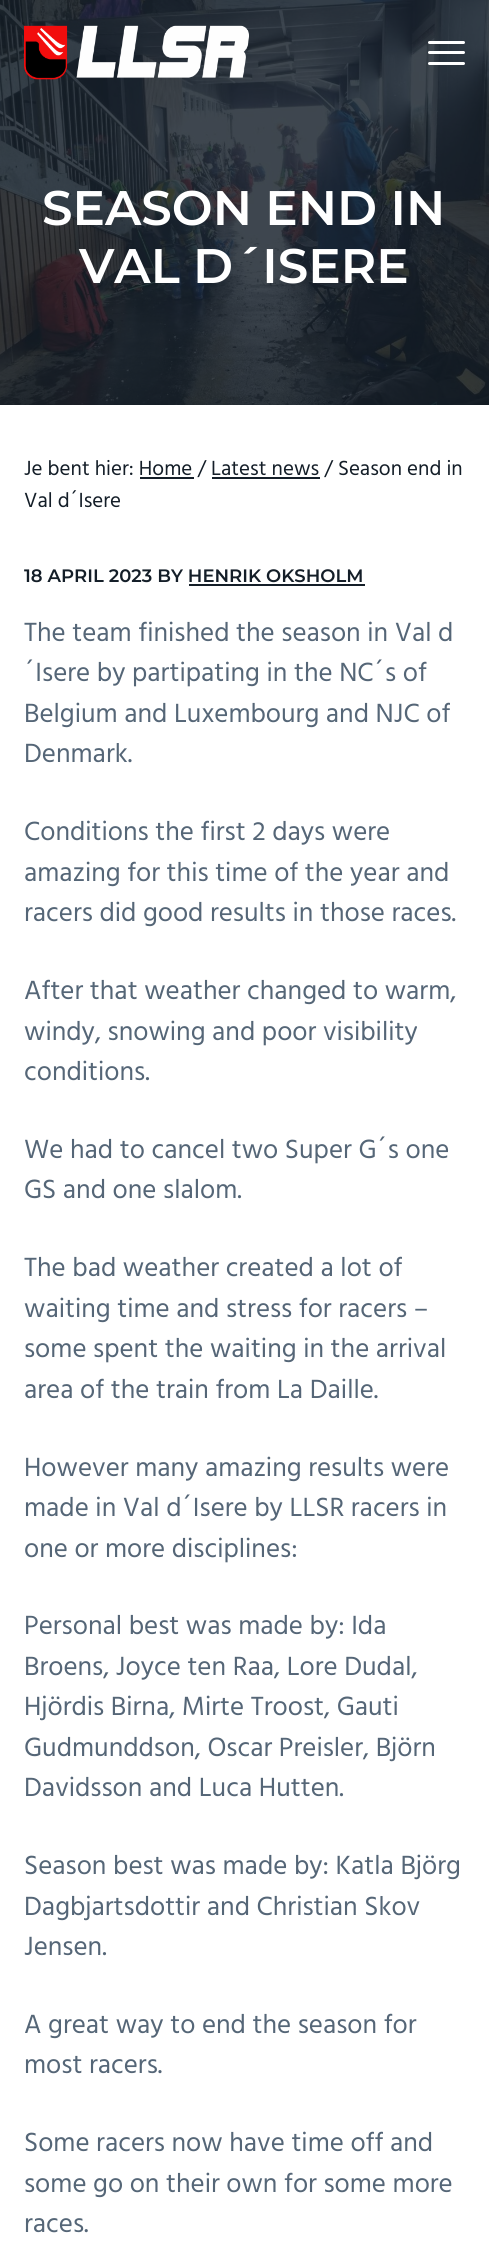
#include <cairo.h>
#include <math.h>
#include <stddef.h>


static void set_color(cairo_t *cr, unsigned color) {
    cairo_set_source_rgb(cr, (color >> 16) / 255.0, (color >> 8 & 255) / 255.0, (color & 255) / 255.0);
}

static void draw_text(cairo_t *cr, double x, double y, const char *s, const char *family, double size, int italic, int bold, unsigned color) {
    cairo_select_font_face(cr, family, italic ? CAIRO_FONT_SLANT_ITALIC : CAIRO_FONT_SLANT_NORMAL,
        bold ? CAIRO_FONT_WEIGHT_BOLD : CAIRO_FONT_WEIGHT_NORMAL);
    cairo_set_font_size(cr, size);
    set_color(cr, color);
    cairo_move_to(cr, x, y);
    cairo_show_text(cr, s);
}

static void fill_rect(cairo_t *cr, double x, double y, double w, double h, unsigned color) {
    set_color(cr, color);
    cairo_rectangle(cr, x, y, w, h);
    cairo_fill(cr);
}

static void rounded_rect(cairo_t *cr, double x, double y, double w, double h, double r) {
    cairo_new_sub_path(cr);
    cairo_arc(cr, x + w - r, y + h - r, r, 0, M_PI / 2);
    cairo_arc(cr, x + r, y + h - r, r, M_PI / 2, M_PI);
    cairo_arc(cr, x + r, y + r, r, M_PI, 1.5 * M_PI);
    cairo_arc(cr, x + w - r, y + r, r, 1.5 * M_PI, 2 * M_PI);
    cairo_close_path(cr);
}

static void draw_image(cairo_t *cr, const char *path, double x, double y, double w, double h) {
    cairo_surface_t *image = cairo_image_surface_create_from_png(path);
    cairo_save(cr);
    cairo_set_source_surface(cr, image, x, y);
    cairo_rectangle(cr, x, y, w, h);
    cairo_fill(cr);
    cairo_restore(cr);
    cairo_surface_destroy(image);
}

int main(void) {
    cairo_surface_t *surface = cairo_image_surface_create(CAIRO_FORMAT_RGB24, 489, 2245);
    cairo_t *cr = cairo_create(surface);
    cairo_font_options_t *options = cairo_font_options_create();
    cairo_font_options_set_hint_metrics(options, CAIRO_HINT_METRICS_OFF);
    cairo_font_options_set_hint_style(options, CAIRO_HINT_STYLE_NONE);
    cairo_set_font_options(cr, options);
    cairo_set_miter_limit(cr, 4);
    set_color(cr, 0xFFFFFF);
    cairo_paint(cr);
    draw_image(cr, "assets/img2.png", 0, 0, 489, 405);
    draw_image(cr, "assets/img1.png", 24, 25, 225, 55);
    set_color(cr, 0xFFFFFF);
    rounded_rect(cr, 428, 51, 37, 3, 1.5);
    cairo_fill(cr);
    rounded_rect(cr, 428, 41, 37, 3, 1.5);
    cairo_fill(cr);
    rounded_rect(cr, 428, 62, 37, 3, 1.5);
    cairo_fill(cr);
    draw_text(cr, 42, 225, "SEASON END IN", "Montserrat Thin", 48.5, 0, 0, 0xFFFFFF);
    draw_text(cr, 79, 283, "VAL D´ISERE", "Montserrat Thin", 48.5, 0, 0, 0xFFFFFF);
    draw_text(cr, 24, 475, "Je bent hier: Home / Latest news / Season end in", "Hind", 21, 0, 0, 0x141E28);
    fill_rect(cr, 140, 477, 54, 2, 0x141E28);
    fill_rect(cr, 212, 477, 108, 2, 0x141E28);
    draw_text(cr, 24, 507, "Val d´Isere", "Hind", 21, 0, 0, 0x141E28);
    draw_text(cr, 24, 582, "18 APRIL 2023 BY HENRIK OKSHOLM", "Montserrat Thin", 18, 0, 0, 0x141E28);
    fill_rect(cr, 189, 584, 176, 2, 0x141E28);
    draw_text(cr, 24, 641, "The team finished the season in Val d", "Hind", 27, 0, 0, 0x556677);
    draw_text(cr, 24, 681, "´Isere by partipating in the NC´s of", "Hind", 27, 0, 0, 0x556677);
    draw_text(cr, 24, 722, "Belgium and Luxembourg and NJC of", "Hind", 27, 0, 0, 0x556677);
    draw_text(cr, 24, 762, "Denmark.", "Hind", 27, 0, 0, 0x556677);
    draw_text(cr, 24, 840, "Conditions the first 2 days were", "Hind", 27, 0, 0, 0x556677);
    draw_text(cr, 24, 881, "amazing for this time of the year and", "Hind", 27, 0, 0, 0x556677);
    draw_text(cr, 24, 921, "racers did good results in those races.", "Hind", 27, 0, 0, 0x556677);
    draw_text(cr, 24, 999, "After that weather changed to warm,", "Hind", 27, 0, 0, 0x556677);
    draw_text(cr, 24, 1040, "windy, snowing and poor visibility", "Hind", 27, 0, 0, 0x556677);
    draw_text(cr, 24, 1080, "conditions.", "Hind", 27, 0, 0, 0x556677);
    draw_text(cr, 24, 1158, "We had to cancel two Super G´s one", "Hind", 27, 0, 0, 0x556677);
    draw_text(cr, 24, 1198, "GS and one slalom.", "Hind", 27, 0, 0, 0x556677);
    draw_text(cr, 24, 1276, "The bad weather created a lot of", "Hind", 27, 0, 0, 0x556677);
    draw_text(cr, 24, 1317, "waiting time and stress for racers –", "Hind", 27, 0, 0, 0x556677);
    draw_text(cr, 24, 1357, "some spent the waiting in the arrival", "Hind", 27, 0, 0, 0x556677);
    draw_text(cr, 24, 1398, "area of the train from La Daille.", "Hind", 27, 0, 0, 0x556677);
    draw_text(cr, 24, 1476, "However many amazing results were", "Hind", 27, 0, 0, 0x556677);
    draw_text(cr, 24, 1516, "made in Val d´Isere by LLSR racers in", "Hind", 27, 0, 0, 0x556677);
    draw_text(cr, 24, 1557, "one or more disciplines:", "Hind", 27, 0, 0, 0x556677);
    draw_text(cr, 24, 1634, "Personal best was made by: Ida", "Hind", 27, 0, 0, 0x556677);
    draw_text(cr, 24, 1675, "Broens, Joyce ten Raa, Lore Dudal,", "Hind", 27, 0, 0, 0x556677);
    draw_text(cr, 24, 1715, "Hjördis Birna, Mirte Troost, Gauti", "Hind", 27, 0, 0, 0x556677);
    draw_text(cr, 24, 1756, "Gudmunddson, Oscar Preisler, Björn", "Hind", 27, 0, 0, 0x556677);
    draw_text(cr, 24, 1796, "Davidsson and Luca Hutten.", "Hind", 27, 0, 0, 0x556677);
    draw_text(cr, 24, 1874, "Season best was made by: Katla Björg", "Hind", 27, 0, 0, 0x556677);
    draw_text(cr, 24, 1915, "Dagbjartsdottir and Christian Skov", "Hind", 27, 0, 0, 0x556677);
    draw_text(cr, 24, 1955, "Jensen.", "Hind", 27, 0, 0, 0x556677);
    draw_text(cr, 24, 2033, "A great way to end the season for", "Hind", 27, 0, 0, 0x556677);
    draw_text(cr, 24, 2073, "most racers.", "Hind", 27, 0, 0, 0x556677);
    draw_text(cr, 24, 2151, "Some racers now have time off and", "Hind", 27, 0, 0, 0x556677);
    draw_text(cr, 24, 2192, "some go on their own for some more", "Hind", 27, 0, 0, 0x556677);
    draw_text(cr, 24, 2232, "races.", "Hind", 27, 0, 0, 0x556677);
    cairo_surface_write_to_png(surface, "output.png");
    cairo_font_options_destroy(options);
    cairo_destroy(cr);
    cairo_surface_destroy(surface);
    return 0;
}
